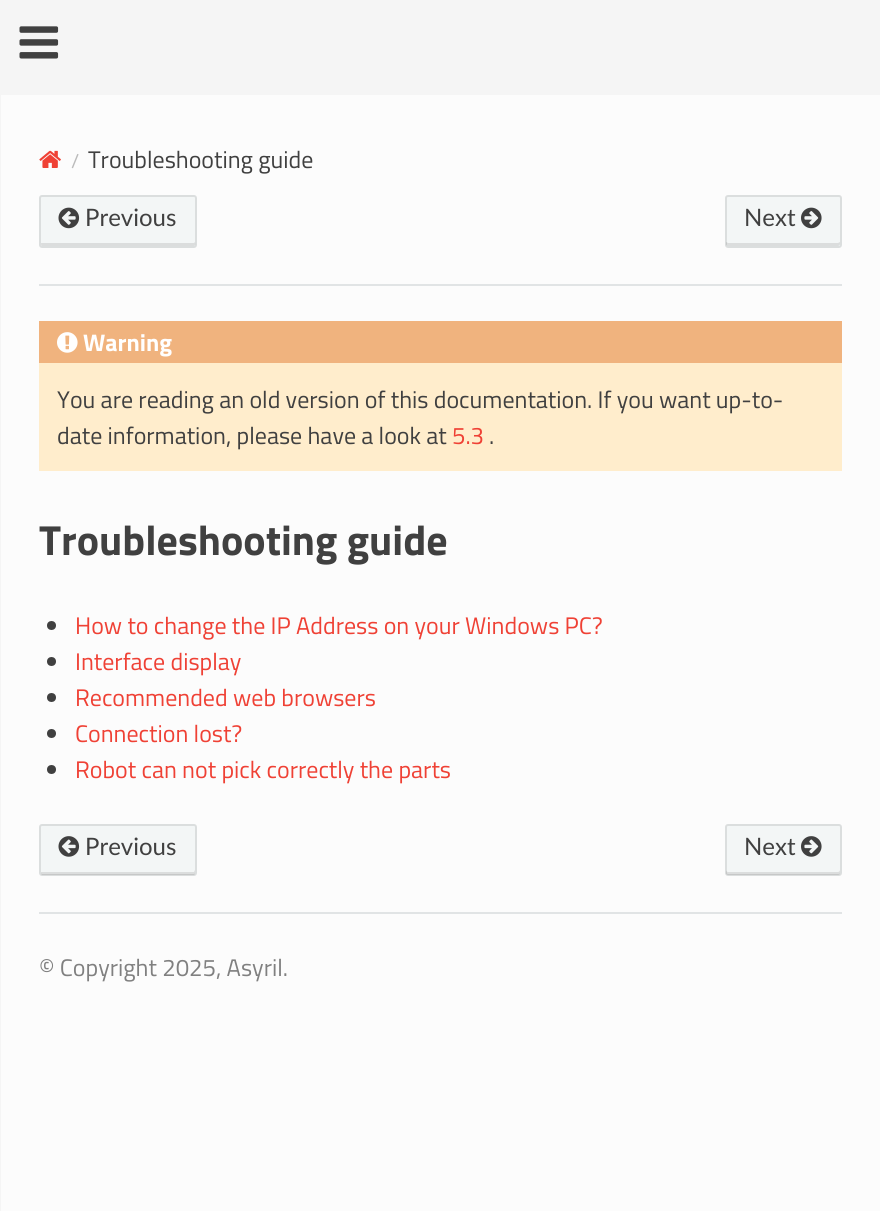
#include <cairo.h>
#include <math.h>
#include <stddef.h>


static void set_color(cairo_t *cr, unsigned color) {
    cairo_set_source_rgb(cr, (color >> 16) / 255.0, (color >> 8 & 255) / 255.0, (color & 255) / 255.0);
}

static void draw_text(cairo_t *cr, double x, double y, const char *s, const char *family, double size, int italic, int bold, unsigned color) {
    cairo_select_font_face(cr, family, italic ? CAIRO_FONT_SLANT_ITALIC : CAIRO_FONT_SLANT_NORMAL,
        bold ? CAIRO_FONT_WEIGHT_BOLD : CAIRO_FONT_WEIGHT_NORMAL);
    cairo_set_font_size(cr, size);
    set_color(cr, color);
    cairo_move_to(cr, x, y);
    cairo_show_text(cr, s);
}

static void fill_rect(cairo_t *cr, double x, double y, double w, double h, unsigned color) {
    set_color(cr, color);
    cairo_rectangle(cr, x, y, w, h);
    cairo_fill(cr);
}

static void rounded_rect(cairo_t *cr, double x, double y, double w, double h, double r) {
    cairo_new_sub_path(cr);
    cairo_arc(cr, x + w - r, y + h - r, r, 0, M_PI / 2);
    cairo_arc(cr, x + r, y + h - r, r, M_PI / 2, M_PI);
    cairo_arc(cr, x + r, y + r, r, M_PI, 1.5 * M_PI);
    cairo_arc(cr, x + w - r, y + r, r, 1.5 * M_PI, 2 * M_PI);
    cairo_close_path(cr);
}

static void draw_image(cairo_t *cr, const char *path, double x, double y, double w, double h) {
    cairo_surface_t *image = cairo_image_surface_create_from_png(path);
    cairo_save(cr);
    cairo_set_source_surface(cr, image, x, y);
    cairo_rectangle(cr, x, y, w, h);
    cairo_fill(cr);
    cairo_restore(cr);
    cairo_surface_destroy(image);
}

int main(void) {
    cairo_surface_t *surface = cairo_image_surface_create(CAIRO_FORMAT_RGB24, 880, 1211);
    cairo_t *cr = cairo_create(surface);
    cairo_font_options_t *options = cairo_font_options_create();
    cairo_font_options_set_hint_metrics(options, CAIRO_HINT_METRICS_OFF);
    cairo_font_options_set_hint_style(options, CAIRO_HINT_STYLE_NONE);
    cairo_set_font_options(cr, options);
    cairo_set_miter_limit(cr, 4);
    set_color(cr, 0xFCFCFC);
    cairo_paint(cr);
    fill_rect(cr, 0, 0, 1, 1211, 0xF5F5F5);
    fill_rect(cr, 1, 0, 879, 95, 0xF5F5F5);
    draw_image(cr, "assets/img1.png", 19, 26, 40, 33);
    draw_image(cr, "assets/img2.png", 39, 150, 22, 18);
    draw_text(cr, 71, 168, "/", "Titillium Web", 20, 0, 0, 0xBBBBBB);
    draw_text(cr, 88, 168, "Troubleshooting guide", "Titillium Web", 24, 0, 0, 0x404040);
    set_color(cr, 0xF3F6F6);
    rounded_rect(cr, 39, 195, 158, 53, 3);
    cairo_fill(cr);
    set_color(cr, 0xDBDDDD);
    cairo_new_path(cr);
    cairo_move_to(cr, 41, 243);
    cairo_curve_to(cr, 41, 244, 41, 246, 42, 246);
    cairo_line_to(cr, 194, 246);
    cairo_curve_to(cr, 196, 245, 195, 243, 195, 242);
    cairo_line_to(cr, 194, 243);
    cairo_close_path(cr);
    cairo_fill(cr);
    rounded_rect(cr, 40, 196, 156, 51, 2);
    cairo_set_source_rgba(cr, 0, 0, 0, 0.1);
    cairo_stroke(cr);
    draw_image(cr, "assets/img3.png", 58, 207, 22, 22);
    draw_text(cr, 85, 226, "Previous", "Lato", 24, 0, 0, 0x404040);
    set_color(cr, 0xF3F6F6);
    rounded_rect(cr, 725, 195, 117, 53, 3);
    cairo_fill(cr);
    set_color(cr, 0xDBDDDD);
    cairo_new_path(cr);
    cairo_move_to(cr, 726, 242);
    cairo_line_to(cr, 726, 244);
    cairo_curve_to(cr, 726, 245, 727, 246, 728, 246);
    cairo_line_to(cr, 838, 246);
    cairo_curve_to(cr, 839, 246, 840, 245, 840, 244);
    cairo_line_to(cr, 840, 242);
    cairo_line_to(cr, 838, 243);
    cairo_line_to(cr, 728, 243);
    cairo_close_path(cr);
    cairo_fill(cr);
    rounded_rect(cr, 726, 196, 115, 51, 2);
    cairo_set_source_rgba(cr, 0, 0, 0, 0.1);
    cairo_stroke(cr);
    draw_text(cr, 744, 226, "Next", "Lato", 24, 0, 0, 0x404040);
    draw_image(cr, "assets/img4.png", 801, 207, 21, 22);
    fill_rect(cr, 39, 284, 803, 2, 0xE1E4E5);
    fill_rect(cr, 39, 363, 803, 108, 0xFFEDCC);
    fill_rect(cr, 39, 321, 803, 42, 0xF0B37E);
    draw_image(cr, "assets/img5.png", 57, 332, 21, 21);
    draw_text(cr, 83, 351, "Warning", "Titillium Web", 24, 0, 1, 0xFFFFFF);
    draw_text(cr, 57, 408, "You are reading an old version of this documentation. If you want up-to-", "Titillium Web", 24, 0, 0, 0x404040);
    draw_text(cr, 57, 444, "date information, please have a look at", "Titillium Web", 24, 0, 0, 0x404040);
    draw_text(cr, 452, 444, "5.3", "Titillium Web", 24, 0, 0, 0xEF4135);
    draw_text(cr, 489, 444, ".", "Titillium Web", 24, 0, 0, 0x404040);
    draw_text(cr, 39, 555, "Troubleshooting guide", "Titillium Web", 42, 0, 1, 0x404040);
    cairo_new_path(cr);
    cairo_arc(cr, 51.5, 625.5, 4.5, 0, 2 * M_PI);
    cairo_fill(cr);
    draw_text(cr, 75, 634, "How to change the IP Address on your Windows PC?", "Titillium Web", 24, 0, 0, 0xEF4135);
    set_color(cr, 0x404040);
    cairo_new_path(cr);
    cairo_arc(cr, 51.5, 661.5, 4.5, 0, 2 * M_PI);
    cairo_fill(cr);
    draw_text(cr, 75, 670, "Interface display", "Titillium Web", 24, 0, 0, 0xEF4135);
    set_color(cr, 0x404040);
    cairo_new_path(cr);
    cairo_arc(cr, 51.5, 697.5, 4.5, 0, 2 * M_PI);
    cairo_fill(cr);
    draw_text(cr, 75, 706, "Recommended web browsers", "Titillium Web", 24, 0, 0, 0xEF4135);
    set_color(cr, 0x404040);
    cairo_new_path(cr);
    cairo_arc(cr, 51.5, 733.5, 4.5, 0, 2 * M_PI);
    cairo_fill(cr);
    draw_text(cr, 75, 742, "Connection lost?", "Titillium Web", 24, 0, 0, 0xEF4135);
    set_color(cr, 0x404040);
    cairo_new_path(cr);
    cairo_arc(cr, 51.5, 769.5, 4.5, 0, 2 * M_PI);
    cairo_fill(cr);
    draw_text(cr, 75, 778, "Robot can not pick correctly the parts", "Titillium Web", 24, 0, 0, 0xEF4135);
    set_color(cr, 0xF3F6F6);
    rounded_rect(cr, 39, 824, 158, 52, 3);
    cairo_fill(cr);
    set_color(cr, 0xDBDDDD);
    cairo_new_path(cr);
    cairo_move_to(cr, 41, 872);
    cairo_line_to(cr, 41, 874);
    cairo_curve_to(cr, 41, 874, 42, 875, 42, 875);
    cairo_line_to(cr, 194, 875);
    cairo_curve_to(cr, 194, 875, 195, 874, 195, 874);
    cairo_line_to(cr, 195, 870);
    cairo_line_to(cr, 194, 872);
    cairo_close_path(cr);
    cairo_fill(cr);
    rounded_rect(cr, 40, 825, 156, 50, 2);
    cairo_set_source_rgba(cr, 0, 0, 0, 0.1);
    cairo_stroke(cr);
    draw_image(cr, "assets/img6.png", 58, 836, 22, 21);
    draw_text(cr, 85, 855, "Previous", "Lato", 24, 0, 0, 0x404040);
    set_color(cr, 0xF3F6F6);
    rounded_rect(cr, 725, 824, 117, 52, 3);
    cairo_fill(cr);
    set_color(cr, 0xDBDDDD);
    cairo_new_path(cr);
    cairo_move_to(cr, 726, 870);
    cairo_line_to(cr, 726, 874);
    cairo_curve_to(cr, 726, 874, 727, 875, 728, 875);
    cairo_line_to(cr, 838, 875);
    cairo_curve_to(cr, 839, 875, 840, 874, 840, 874);
    cairo_line_to(cr, 840, 870);
    cairo_curve_to(cr, 840, 871, 839, 872, 838, 872);
    cairo_line_to(cr, 728, 872);
    cairo_curve_to(cr, 727, 872, 726, 871, 726, 870);
    cairo_close_path(cr);
    cairo_fill(cr);
    rounded_rect(cr, 726, 825, 115, 50, 2);
    cairo_set_source_rgba(cr, 0, 0, 0, 0.1);
    cairo_stroke(cr);
    draw_text(cr, 744, 855, "Next", "Lato", 24, 0, 0, 0x404040);
    draw_image(cr, "assets/img7.png", 801, 836, 21, 21);
    fill_rect(cr, 39, 912, 803, 2, 0xE1E4E5);
    draw_text(cr, 39, 976, "© Copyright 2025, Asyril.", "Titillium Web", 24, 0, 0, 0x808080);
    cairo_surface_write_to_png(surface, "output.png");
    cairo_font_options_destroy(options);
    cairo_destroy(cr);
    cairo_surface_destroy(surface);
    return 0;
}
